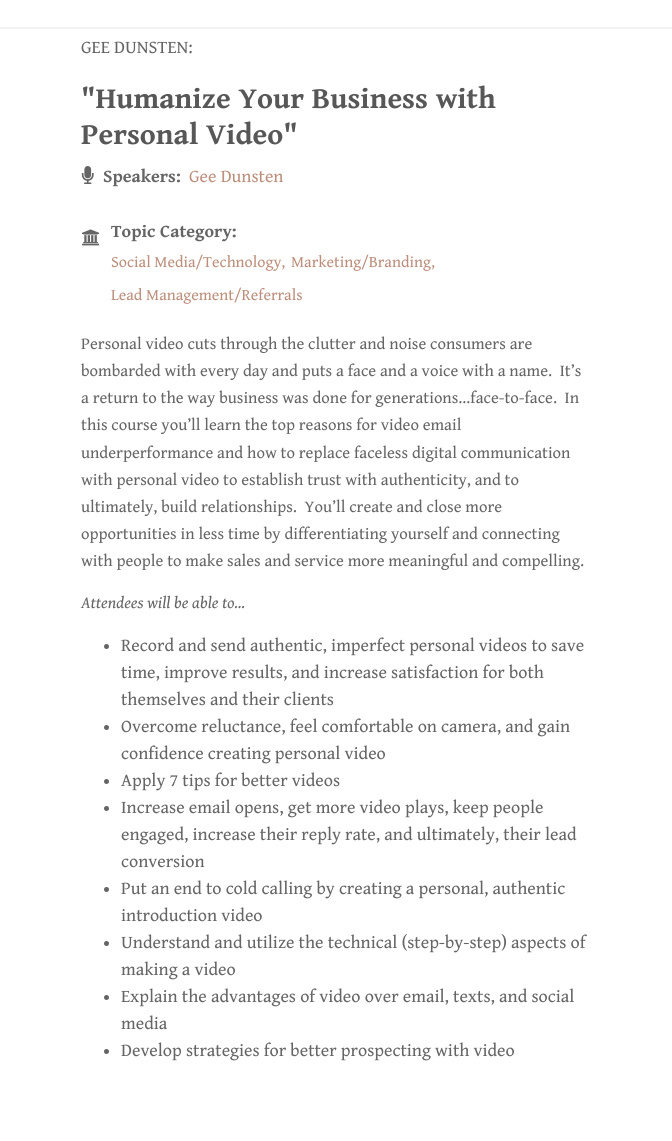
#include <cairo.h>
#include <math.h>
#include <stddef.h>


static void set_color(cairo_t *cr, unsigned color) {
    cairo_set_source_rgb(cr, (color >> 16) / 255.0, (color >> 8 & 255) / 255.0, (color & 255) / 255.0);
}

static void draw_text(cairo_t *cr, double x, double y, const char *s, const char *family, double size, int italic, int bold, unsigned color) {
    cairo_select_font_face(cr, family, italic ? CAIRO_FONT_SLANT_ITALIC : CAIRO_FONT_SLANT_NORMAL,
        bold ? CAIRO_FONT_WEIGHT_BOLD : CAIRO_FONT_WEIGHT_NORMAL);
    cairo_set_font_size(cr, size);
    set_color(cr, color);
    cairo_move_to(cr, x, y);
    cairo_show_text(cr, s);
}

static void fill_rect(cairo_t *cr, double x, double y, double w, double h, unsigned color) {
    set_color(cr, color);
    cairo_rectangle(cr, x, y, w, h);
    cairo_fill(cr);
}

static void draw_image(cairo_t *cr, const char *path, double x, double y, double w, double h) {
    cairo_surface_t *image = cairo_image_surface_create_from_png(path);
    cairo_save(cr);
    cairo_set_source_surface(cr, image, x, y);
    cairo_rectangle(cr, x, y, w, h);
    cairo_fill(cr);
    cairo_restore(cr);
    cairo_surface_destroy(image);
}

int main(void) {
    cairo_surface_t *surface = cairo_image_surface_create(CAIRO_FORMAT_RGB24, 672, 1141);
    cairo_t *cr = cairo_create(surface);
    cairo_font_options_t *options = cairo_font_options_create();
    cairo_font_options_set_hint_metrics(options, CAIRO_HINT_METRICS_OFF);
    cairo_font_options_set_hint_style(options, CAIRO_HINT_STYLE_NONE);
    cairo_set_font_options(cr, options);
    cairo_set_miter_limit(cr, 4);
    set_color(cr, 0xFFFFFF);
    cairo_paint(cr);
    fill_rect(cr, 0, 27, 672, 2, 0xF2F2F2);
    draw_text(cr, 81, 53, "GEE DUNSTEN:", "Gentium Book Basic", 18, 0, 0, 0x656565);
    draw_text(cr, 81, 108, "\"Humanize Your Business with", "Gentium Book Basic", 30, 0, 1, 0x575757);
    draw_text(cr, 81, 144, "Personal Video\"", "Gentium Book Basic", 30, 0, 1, 0x575757);
    draw_image(cr, "assets/img1.png", 81, 166, 13, 18);
    draw_text(cr, 103, 182, "Speakers:", "Gentium Book Basic", 18, 0, 1, 0x656565);
    draw_text(cr, 189, 182, "Gee Dunsten", "Gentium Book Basic", 18, 0, 0, 0xBC8E7B);
    draw_image(cr, "assets/img2.png", 82, 229, 18, 17);
    draw_text(cr, 111, 237, "Topic Category:", "Gentium Book Basic", 18, 0, 1, 0x656565);
    draw_text(cr, 111, 267, "Social Media/Technology,", "Gentium Book Basic", 16, 0, 0, 0xBC8E7B);
    draw_text(cr, 291, 267, "Marketing/Branding,", "Gentium Book Basic", 16, 0, 0, 0xBC8E7B);
    draw_text(cr, 111, 300, "Lead Management/Referrals", "Gentium Book Basic", 16, 0, 0, 0xBC8E7B);
    draw_text(cr, 81, 349, "Personal video cuts through the clutter and noise consumers are", "Gentium Book Basic", 16.65, 0, 0, 0x656565);
    draw_text(cr, 81, 376, "bombarded with every day and puts a face and a voice with a name.  It’s", "Gentium Book Basic", 16.65, 0, 0, 0x656565);
    draw_text(cr, 81, 403, "a return to the way business was done for generations…face-to-face.  In", "Gentium Book Basic", 16.65, 0, 0, 0x656565);
    draw_text(cr, 81, 430, "this course you’ll learn the top reasons for video email", "Gentium Book Basic", 16.65, 0, 0, 0x656565);
    draw_text(cr, 81, 458, "underperformance and how to replace faceless digital communication", "Gentium Book Basic", 16.65, 0, 0, 0x656565);
    draw_text(cr, 81, 485, "with personal video to establish trust with authenticity, and to", "Gentium Book Basic", 16.65, 0, 0, 0x656565);
    draw_text(cr, 81, 512, "ultimately, build relationships.  You’ll create and close more", "Gentium Book Basic", 16.65, 0, 0, 0x656565);
    draw_text(cr, 81, 539, "opportunities in less time by differentiating yourself and connecting", "Gentium Book Basic", 16.65, 0, 0, 0x656565);
    draw_text(cr, 81, 566, "with people to make sales and service more meaningful and compelling.", "Gentium Book Basic", 16.65, 0, 0, 0x656565);
    draw_text(cr, 81, 608, "Attendees will be able to…", "Gentium Book Basic", 16.65, 1, 0, 0x656565);
    cairo_new_path(cr);
    cairo_arc(cr, 106.5, 646.5, 2.5, 0, 2 * M_PI);
    cairo_fill(cr);
    draw_text(cr, 121, 651, "Record and send authentic, imperfect personal videos to save", "Gentium Book Basic", 18, 0, 0, 0x656565);
    draw_text(cr, 121, 678, "time, improve results, and increase satisfaction for both", "Gentium Book Basic", 18, 0, 0, 0x656565);
    draw_text(cr, 121, 705, "themselves and their clients", "Gentium Book Basic", 18, 0, 0, 0x656565);
    cairo_new_path(cr);
    cairo_arc(cr, 106.5, 727.5, 2.5, 0, 2 * M_PI);
    cairo_fill(cr);
    draw_text(cr, 121, 732, "Overcome reluctance, feel comfortable on camera, and gain", "Gentium Book Basic", 18, 0, 0, 0x656565);
    draw_text(cr, 121, 759, "confidence creating personal video", "Gentium Book Basic", 18, 0, 0, 0x656565);
    cairo_new_path(cr);
    cairo_arc(cr, 106.5, 781.5, 2.5, 0, 2 * M_PI);
    cairo_fill(cr);
    draw_text(cr, 121, 786, "Apply 7 tips for better videos", "Gentium Book Basic", 18, 0, 0, 0x656565);
    cairo_new_path(cr);
    cairo_arc(cr, 106.5, 808.5, 2.5, 0, 2 * M_PI);
    cairo_fill(cr);
    draw_text(cr, 121, 813, "Increase email opens, get more video plays, keep people", "Gentium Book Basic", 18, 0, 0, 0x656565);
    draw_text(cr, 121, 840, "engaged, increase their reply rate, and ultimately, their lead", "Gentium Book Basic", 18, 0, 0, 0x656565);
    draw_text(cr, 121, 867, "conversion", "Gentium Book Basic", 18, 0, 0, 0x656565);
    cairo_new_path(cr);
    cairo_arc(cr, 106.5, 889.5, 2.5, 0, 2 * M_PI);
    cairo_fill(cr);
    draw_text(cr, 121, 894, "Put an end to cold calling by creating a personal, authentic", "Gentium Book Basic", 18, 0, 0, 0x656565);
    draw_text(cr, 121, 921, "introduction video", "Gentium Book Basic", 18, 0, 0, 0x656565);
    cairo_new_path(cr);
    cairo_arc(cr, 106.5, 943.5, 2.5, 0, 2 * M_PI);
    cairo_fill(cr);
    draw_text(cr, 121, 948, "Understand and utilize the technical (step-by-step) aspects of", "Gentium Book Basic", 18, 0, 0, 0x656565);
    draw_text(cr, 121, 975, "making a video", "Gentium Book Basic", 18, 0, 0, 0x656565);
    cairo_new_path(cr);
    cairo_arc(cr, 106.5, 997.5, 2.5, 0, 2 * M_PI);
    cairo_fill(cr);
    draw_text(cr, 121, 1002, "Explain the advantages of video over email, texts, and social", "Gentium Book Basic", 18, 0, 0, 0x656565);
    draw_text(cr, 121, 1029, "media", "Gentium Book Basic", 18, 0, 0, 0x656565);
    cairo_new_path(cr);
    cairo_arc(cr, 106.5, 1051.5, 2.5, 0, 2 * M_PI);
    cairo_fill(cr);
    draw_text(cr, 121, 1056, "Develop strategies for better prospecting with video", "Gentium Book Basic", 18, 0, 0, 0x656565);
    cairo_surface_write_to_png(surface, "output.png");
    cairo_font_options_destroy(options);
    cairo_destroy(cr);
    cairo_surface_destroy(surface);
    return 0;
}
